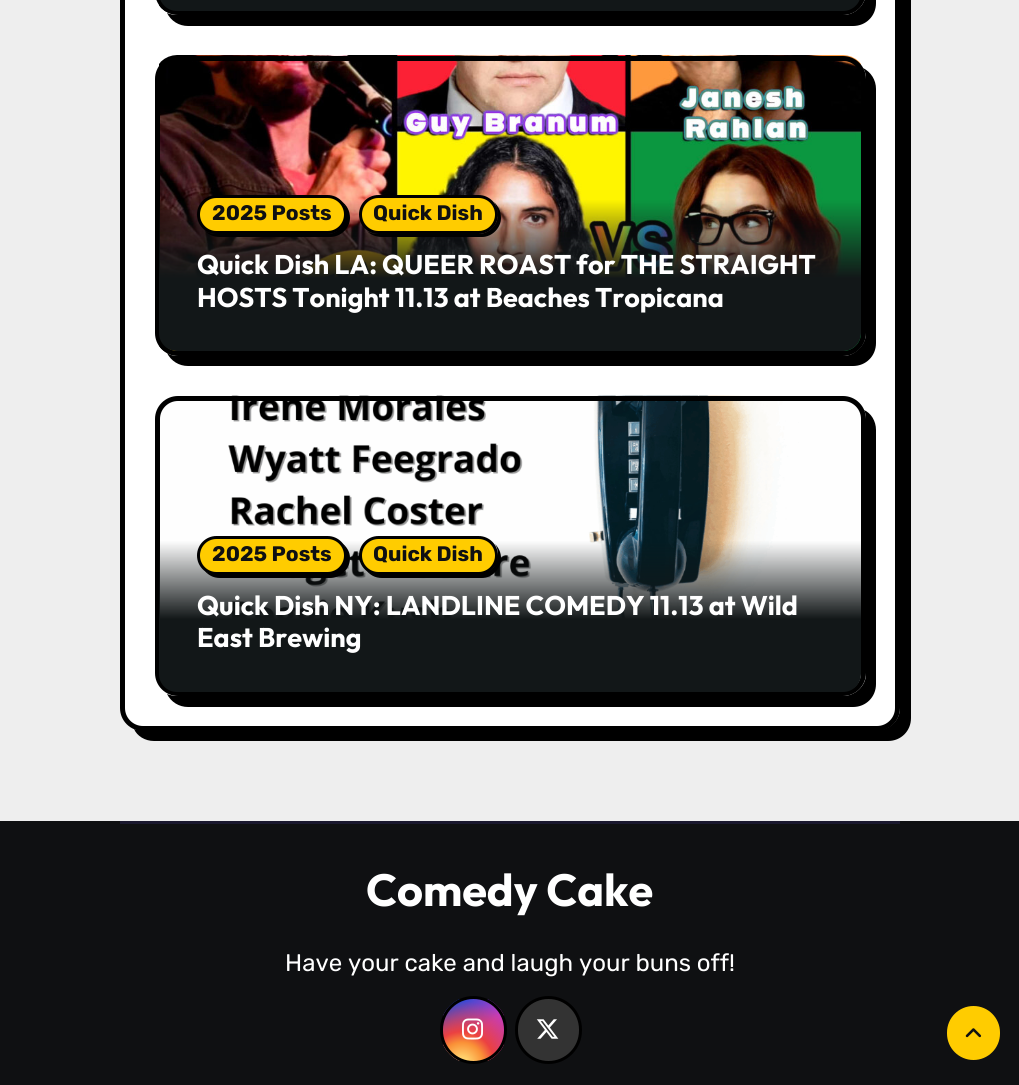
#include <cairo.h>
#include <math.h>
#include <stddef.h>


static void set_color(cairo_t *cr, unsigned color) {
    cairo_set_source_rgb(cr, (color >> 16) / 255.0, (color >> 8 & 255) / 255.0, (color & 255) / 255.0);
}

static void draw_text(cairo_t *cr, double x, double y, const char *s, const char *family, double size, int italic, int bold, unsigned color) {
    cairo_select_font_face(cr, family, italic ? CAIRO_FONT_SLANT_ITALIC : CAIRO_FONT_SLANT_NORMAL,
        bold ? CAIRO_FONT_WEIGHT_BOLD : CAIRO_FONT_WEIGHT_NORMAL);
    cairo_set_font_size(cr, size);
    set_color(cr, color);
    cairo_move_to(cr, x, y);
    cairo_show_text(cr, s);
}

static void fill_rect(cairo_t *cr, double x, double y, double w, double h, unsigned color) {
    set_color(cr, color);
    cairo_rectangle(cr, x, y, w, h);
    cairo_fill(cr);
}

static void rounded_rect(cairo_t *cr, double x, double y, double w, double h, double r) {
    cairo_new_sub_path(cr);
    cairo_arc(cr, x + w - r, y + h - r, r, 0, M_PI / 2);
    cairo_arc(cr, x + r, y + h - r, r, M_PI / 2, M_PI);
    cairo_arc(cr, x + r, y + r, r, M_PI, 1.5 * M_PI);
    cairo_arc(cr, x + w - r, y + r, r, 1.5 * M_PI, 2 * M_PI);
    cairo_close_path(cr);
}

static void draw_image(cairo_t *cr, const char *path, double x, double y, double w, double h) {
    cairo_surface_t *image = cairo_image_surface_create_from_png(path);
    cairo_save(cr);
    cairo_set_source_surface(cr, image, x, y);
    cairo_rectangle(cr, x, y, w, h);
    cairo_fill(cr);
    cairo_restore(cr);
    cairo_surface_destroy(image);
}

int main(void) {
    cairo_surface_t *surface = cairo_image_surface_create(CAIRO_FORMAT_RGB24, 1019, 1085);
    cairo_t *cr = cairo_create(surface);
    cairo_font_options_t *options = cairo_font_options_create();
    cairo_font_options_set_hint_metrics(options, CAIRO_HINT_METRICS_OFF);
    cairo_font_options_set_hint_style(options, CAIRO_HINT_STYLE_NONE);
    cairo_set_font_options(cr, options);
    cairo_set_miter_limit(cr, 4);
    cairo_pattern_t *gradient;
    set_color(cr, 0xEEEEEE);
    cairo_paint(cr);
    set_color(cr, 0x000000);
    cairo_new_path(cr);
    cairo_move_to(cr, 134, 729);
    cairo_curve_to(cr, 137, 736, 145, 741, 154, 741);
    cairo_line_to(cr, 888, 741);
    cairo_curve_to(cr, 901, 741, 911, 731, 911, 718);
    cairo_line_to(cr, 911, -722);
    cairo_curve_to(cr, 911, -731, 906, -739, 898, -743);
    cairo_curve_to(cr, 899, -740, 900, -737, 900, -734);
    cairo_line_to(cr, 900, 708);
    cairo_curve_to(cr, 900, 720, 890, 730, 878, 730);
    cairo_line_to(cr, 142, 730);
    cairo_curve_to(cr, 139, 730, 136, 730, 134, 729);
    cairo_close_path(cr);
    cairo_fill(cr);
    set_color(cr, 0xFFFFFF);
    rounded_rect(cr, 122.5, -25.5, 775, 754, 20.5);
    cairo_fill_preserve(cr);
    set_color(cr, 0x000000);
    cairo_set_line_width(cr, 5);
    cairo_stroke(cr);
    cairo_new_path(cr);
    cairo_move_to(cr, 167, 13);
    cairo_curve_to(cr, 171, 21, 179, 26, 188, 26);
    cairo_line_to(cr, 853, 26);
    cairo_curve_to(cr, 866, 26, 876, 16, 876, 3);
    cairo_line_to(cr, 876, -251);
    cairo_curve_to(cr, 876, -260, 871, -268, 864, -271);
    cairo_curve_to(cr, 865, -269, 866, -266, 866, -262);
    cairo_line_to(cr, 866, -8);
    cairo_curve_to(cr, 866, 5, 855, 15, 843, 15);
    cairo_line_to(cr, 177, 15);
    cairo_curve_to(cr, 173, 15, 170, 14, 167, 13);
    cairo_close_path(cr);
    cairo_fill(cr);
    draw_image(cr, "assets/img1.png", 159, 0, 702, 15);
    rounded_rect(cr, 157.5, -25.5, 706, 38, 20.5);
    cairo_stroke(cr);
    gradient = cairo_pattern_create_linear(510, -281, 510, 11);
    cairo_pattern_add_color_stop_rgba(gradient, 0.48, 0.071, 0.09, 0.094, 0);
    cairo_pattern_add_color_stop_rgba(gradient, 0.75, 0.071, 0.09, 0.094, 1);
    cairo_set_source(cr, gradient);
    cairo_pattern_destroy(gradient);
    rounded_rect(cr, 159, -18, 702, 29, 18);
    cairo_fill(cr);
    set_color(cr, 0x000000);
    cairo_new_path(cr);
    cairo_move_to(cr, 167, 353);
    cairo_curve_to(cr, 171, 361, 179, 366, 188, 366);
    cairo_line_to(cr, 853, 366);
    cairo_curve_to(cr, 866, 366, 876, 356, 876, 343);
    cairo_line_to(cr, 876, 89);
    cairo_curve_to(cr, 876, 80, 871, 72, 863, 68);
    cairo_curve_to(cr, 865, 71, 866, 75, 866, 78);
    cairo_line_to(cr, 866, 333);
    cairo_curve_to(cr, 866, 345, 855, 356, 843, 356);
    cairo_line_to(cr, 177, 356);
    cairo_curve_to(cr, 174, 356, 170, 355, 167, 353);
    cairo_close_path(cr);
    cairo_fill(cr);
    draw_image(cr, "assets/img2.png", 159, 55, 702, 300);
    rounded_rect(cr, 157.5, 58.5, 706, 295, 20.5);
    cairo_stroke(cr);
    gradient = cairo_pattern_create_linear(510, 60, 510, 351);
    cairo_pattern_add_color_stop_rgba(gradient, 0.48, 0.071, 0.09, 0.094, 0);
    cairo_pattern_add_color_stop_rgba(gradient, 0.75, 0.071, 0.09, 0.094, 1);
    cairo_set_source(cr, gradient);
    cairo_pattern_destroy(gradient);
    rounded_rect(cr, 159, 60, 702, 291, 18);
    cairo_fill(cr);
    set_color(cr, 0x000000);
    cairo_new_path(cr);
    cairo_move_to(cr, 205, 231);
    cairo_curve_to(cr, 209, 235, 214, 237, 220, 237);
    cairo_line_to(cr, 330, 237);
    cairo_curve_to(cr, 341, 237, 350, 228, 350, 218);
    cairo_curve_to(cr, 350, 211, 347, 205, 341, 201);
    cairo_curve_to(cr, 345, 205, 346, 209, 346, 214);
    cairo_curve_to(cr, 346, 225, 338, 234, 327, 234);
    cairo_line_to(cr, 216, 234);
    cairo_curve_to(cr, 212, 234, 208, 233, 205, 231);
    cairo_close_path(cr);
    cairo_fill(cr);
    set_color(cr, 0xFFCC00);
    rounded_rect(cr, 198.5, 196.5, 147, 36, 18);
    cairo_fill_preserve(cr);
    set_color(cr, 0x000000);
    cairo_set_line_width(cr, 3);
    cairo_stroke(cr);
    draw_text(cr, 212, 220, "2025 Posts", "Rubik", 21, 0, 1, 0x0F1012);
    set_color(cr, 0x000000);
    cairo_new_path(cr);
    cairo_move_to(cr, 367, 231);
    cairo_curve_to(cr, 371, 235, 376, 237, 382, 237);
    cairo_line_to(cr, 482, 237);
    cairo_curve_to(cr, 492, 237, 501, 228, 501, 218);
    cairo_curve_to(cr, 501, 211, 498, 206, 494, 202);
    cairo_curve_to(cr, 496, 206, 498, 210, 498, 214);
    cairo_curve_to(cr, 498, 225, 489, 234, 478, 234);
    cairo_line_to(cr, 378, 234);
    cairo_curve_to(cr, 374, 234, 370, 233, 367, 231);
    cairo_close_path(cr);
    cairo_fill(cr);
    set_color(cr, 0xFFCC00);
    rounded_rect(cr, 360.5, 196.5, 136, 36, 18);
    cairo_fill_preserve(cr);
    set_color(cr, 0x000000);
    cairo_stroke(cr);
    draw_text(cr, 373, 220, "Quick Dish", "Rubik", 21, 0, 1, 0x0F1012);
    draw_text(cr, 197, 274, "Quick Dish LA: QUEER ROAST for THE STRAIGHT", "Outfit", 27, 0, 1, 0xFFFFFF);
    draw_text(cr, 197, 307, "HOSTS Tonight 11.13 at Beaches Tropicana", "Outfit", 27, 0, 1, 0xFFFFFF);
    set_color(cr, 0x000000);
    cairo_new_path(cr);
    cairo_move_to(cr, 167, 694);
    cairo_curve_to(cr, 171, 702, 179, 707, 188, 707);
    cairo_line_to(cr, 853, 707);
    cairo_curve_to(cr, 866, 707, 876, 697, 876, 684);
    cairo_line_to(cr, 876, 430);
    cairo_curve_to(cr, 876, 421, 871, 413, 864, 410);
    cairo_curve_to(cr, 865, 412, 866, 415, 866, 418);
    cairo_line_to(cr, 866, 674);
    cairo_curve_to(cr, 866, 686, 855, 696, 843, 696);
    cairo_line_to(cr, 177, 696);
    cairo_curve_to(cr, 173, 696, 170, 695, 167, 694);
    cairo_close_path(cr);
    cairo_fill(cr);
    draw_image(cr, "assets/img3.png", 159, 395, 702, 301);
    rounded_rect(cr, 157.5, 398.5, 706, 295, 20.5);
    cairo_set_line_width(cr, 5);
    cairo_stroke(cr);
    gradient = cairo_pattern_create_linear(510, 401, 510, 692);
    cairo_pattern_add_color_stop_rgba(gradient, 0.48, 0.071, 0.09, 0.094, 0);
    cairo_pattern_add_color_stop_rgba(gradient, 0.75, 0.071, 0.09, 0.094, 1);
    cairo_set_source(cr, gradient);
    cairo_pattern_destroy(gradient);
    rounded_rect(cr, 159, 401, 702, 291, 18);
    cairo_fill(cr);
    set_color(cr, 0x000000);
    cairo_new_path(cr);
    cairo_move_to(cr, 204, 570);
    cairo_curve_to(cr, 208, 575, 213, 578, 220, 578);
    cairo_line_to(cr, 330, 578);
    cairo_curve_to(cr, 341, 578, 350, 569, 350, 558);
    cairo_curve_to(cr, 350, 552, 347, 547, 342, 543);
    cairo_curve_to(cr, 345, 546, 346, 551, 346, 555);
    cairo_curve_to(cr, 346, 566, 338, 574, 327, 574);
    cairo_line_to(cr, 216, 574);
    cairo_curve_to(cr, 212, 574, 207, 573, 204, 570);
    cairo_close_path(cr);
    cairo_fill(cr);
    set_color(cr, 0xFFCC00);
    rounded_rect(cr, 198.5, 537.5, 147, 36, 18);
    cairo_fill_preserve(cr);
    set_color(cr, 0x000000);
    cairo_set_line_width(cr, 3);
    cairo_stroke(cr);
    draw_text(cr, 212, 561, "2025 Posts", "Rubik", 21, 0, 1, 0x0F1012);
    set_color(cr, 0x000000);
    cairo_new_path(cr);
    cairo_move_to(cr, 366, 570);
    cairo_curve_to(cr, 370, 575, 375, 578, 382, 578);
    cairo_line_to(cr, 482, 578);
    cairo_curve_to(cr, 492, 578, 501, 569, 501, 558);
    cairo_curve_to(cr, 501, 553, 499, 548, 495, 544);
    cairo_curve_to(cr, 497, 547, 498, 551, 498, 555);
    cairo_curve_to(cr, 498, 566, 489, 574, 478, 574);
    cairo_line_to(cr, 378, 574);
    cairo_curve_to(cr, 374, 574, 369, 573, 366, 570);
    cairo_close_path(cr);
    cairo_fill(cr);
    set_color(cr, 0xFFCC00);
    rounded_rect(cr, 360.5, 537.5, 136, 36, 18);
    cairo_fill_preserve(cr);
    set_color(cr, 0x000000);
    cairo_stroke(cr);
    draw_text(cr, 373, 561, "Quick Dish", "Rubik", 21, 0, 1, 0x0F1012);
    draw_text(cr, 197, 615, "Quick Dish NY: LANDLINE COMEDY 11.13 at Wild", "Outfit", 27, 0, 1, 0xFFFFFF);
    draw_text(cr, 197, 647, "East Brewing", "Outfit", 27, 0, 1, 0xFFFFFF);
    fill_rect(cr, 0, 821, 1019, 264, 0x0F1012);
    fill_rect(cr, 120, 821, 780, 3, 0x1A182E);
    draw_text(cr, 366, 906, "Comedy Cake", "Outfit", 45, 0, 1, 0xFFFFFF);
    draw_text(cr, 285, 971, "Have your cake and laugh your buns off!", "Rubik Light", 24, 0, 0, 0xFFFFFF);
    cairo_save(cr);
    rounded_rect(cr, 440, 996, 67, 68, 33.5);
    cairo_clip(cr);
    gradient = cairo_pattern_create_linear(443, 999, 504, 1061);
    cairo_pattern_add_color_stop_rgba(gradient, 0.12, 0.137, 0.294, 0.843, 1);
    cairo_pattern_add_color_stop_rgba(gradient, 0.58, 0.765, 0.235, 0.745, 1);
    cairo_set_source(cr, gradient);
    cairo_pattern_destroy(gradient);
    cairo_rectangle(cr, 443, 999, 61, 62);
    cairo_fill(cr);
    gradient = cairo_pattern_create_radial(462, 1064, 0, 462, 1064, 77);
    cairo_pattern_add_color_stop_rgba(gradient, 0, 1, 0.882, 0.49, 1);
    cairo_pattern_add_color_stop_rgba(gradient, 0.1, 1, 0.804, 0.412, 1);
    cairo_pattern_add_color_stop_rgba(gradient, 0.28, 0.98, 0.569, 0.216, 1);
    cairo_pattern_add_color_stop_rgba(gradient, 0.42, 0.922, 0.255, 0.255, 1);
    cairo_pattern_add_color_stop_rgba(gradient, 0.82, 0.922, 0.255, 0.255, 0);
    cairo_set_source(cr, gradient);
    cairo_pattern_destroy(gradient);
    cairo_rectangle(cr, 443, 1002, 61, 59);
    cairo_fill(cr);
    cairo_restore(cr);
    rounded_rect(cr, 441.5, 997.5, 64, 65, 32);
    set_color(cr, 0x000000);
    cairo_stroke(cr);
    draw_image(cr, "assets/img4.png", 462, 1018, 21, 22);
    set_color(cr, 0x333333);
    rounded_rect(cr, 516.5, 997.5, 64, 65, 32);
    cairo_fill_preserve(cr);
    set_color(cr, 0x000000);
    cairo_stroke(cr);
    draw_image(cr, "assets/img5.png", 536, 1019, 23, 20);
    set_color(cr, 0xFFCC00);
    rounded_rect(cr, 944.5, 1003.5, 58, 59, 29);
    cairo_fill_preserve(cr);
    set_color(cr, 0x0F1012);
    cairo_set_line_width(cr, 5);
    cairo_stroke(cr);
    draw_image(cr, "assets/img6.png", 965, 1028, 17, 10);
    cairo_surface_write_to_png(surface, "output.png");
    cairo_font_options_destroy(options);
    cairo_destroy(cr);
    cairo_surface_destroy(surface);
    return 0;
}
